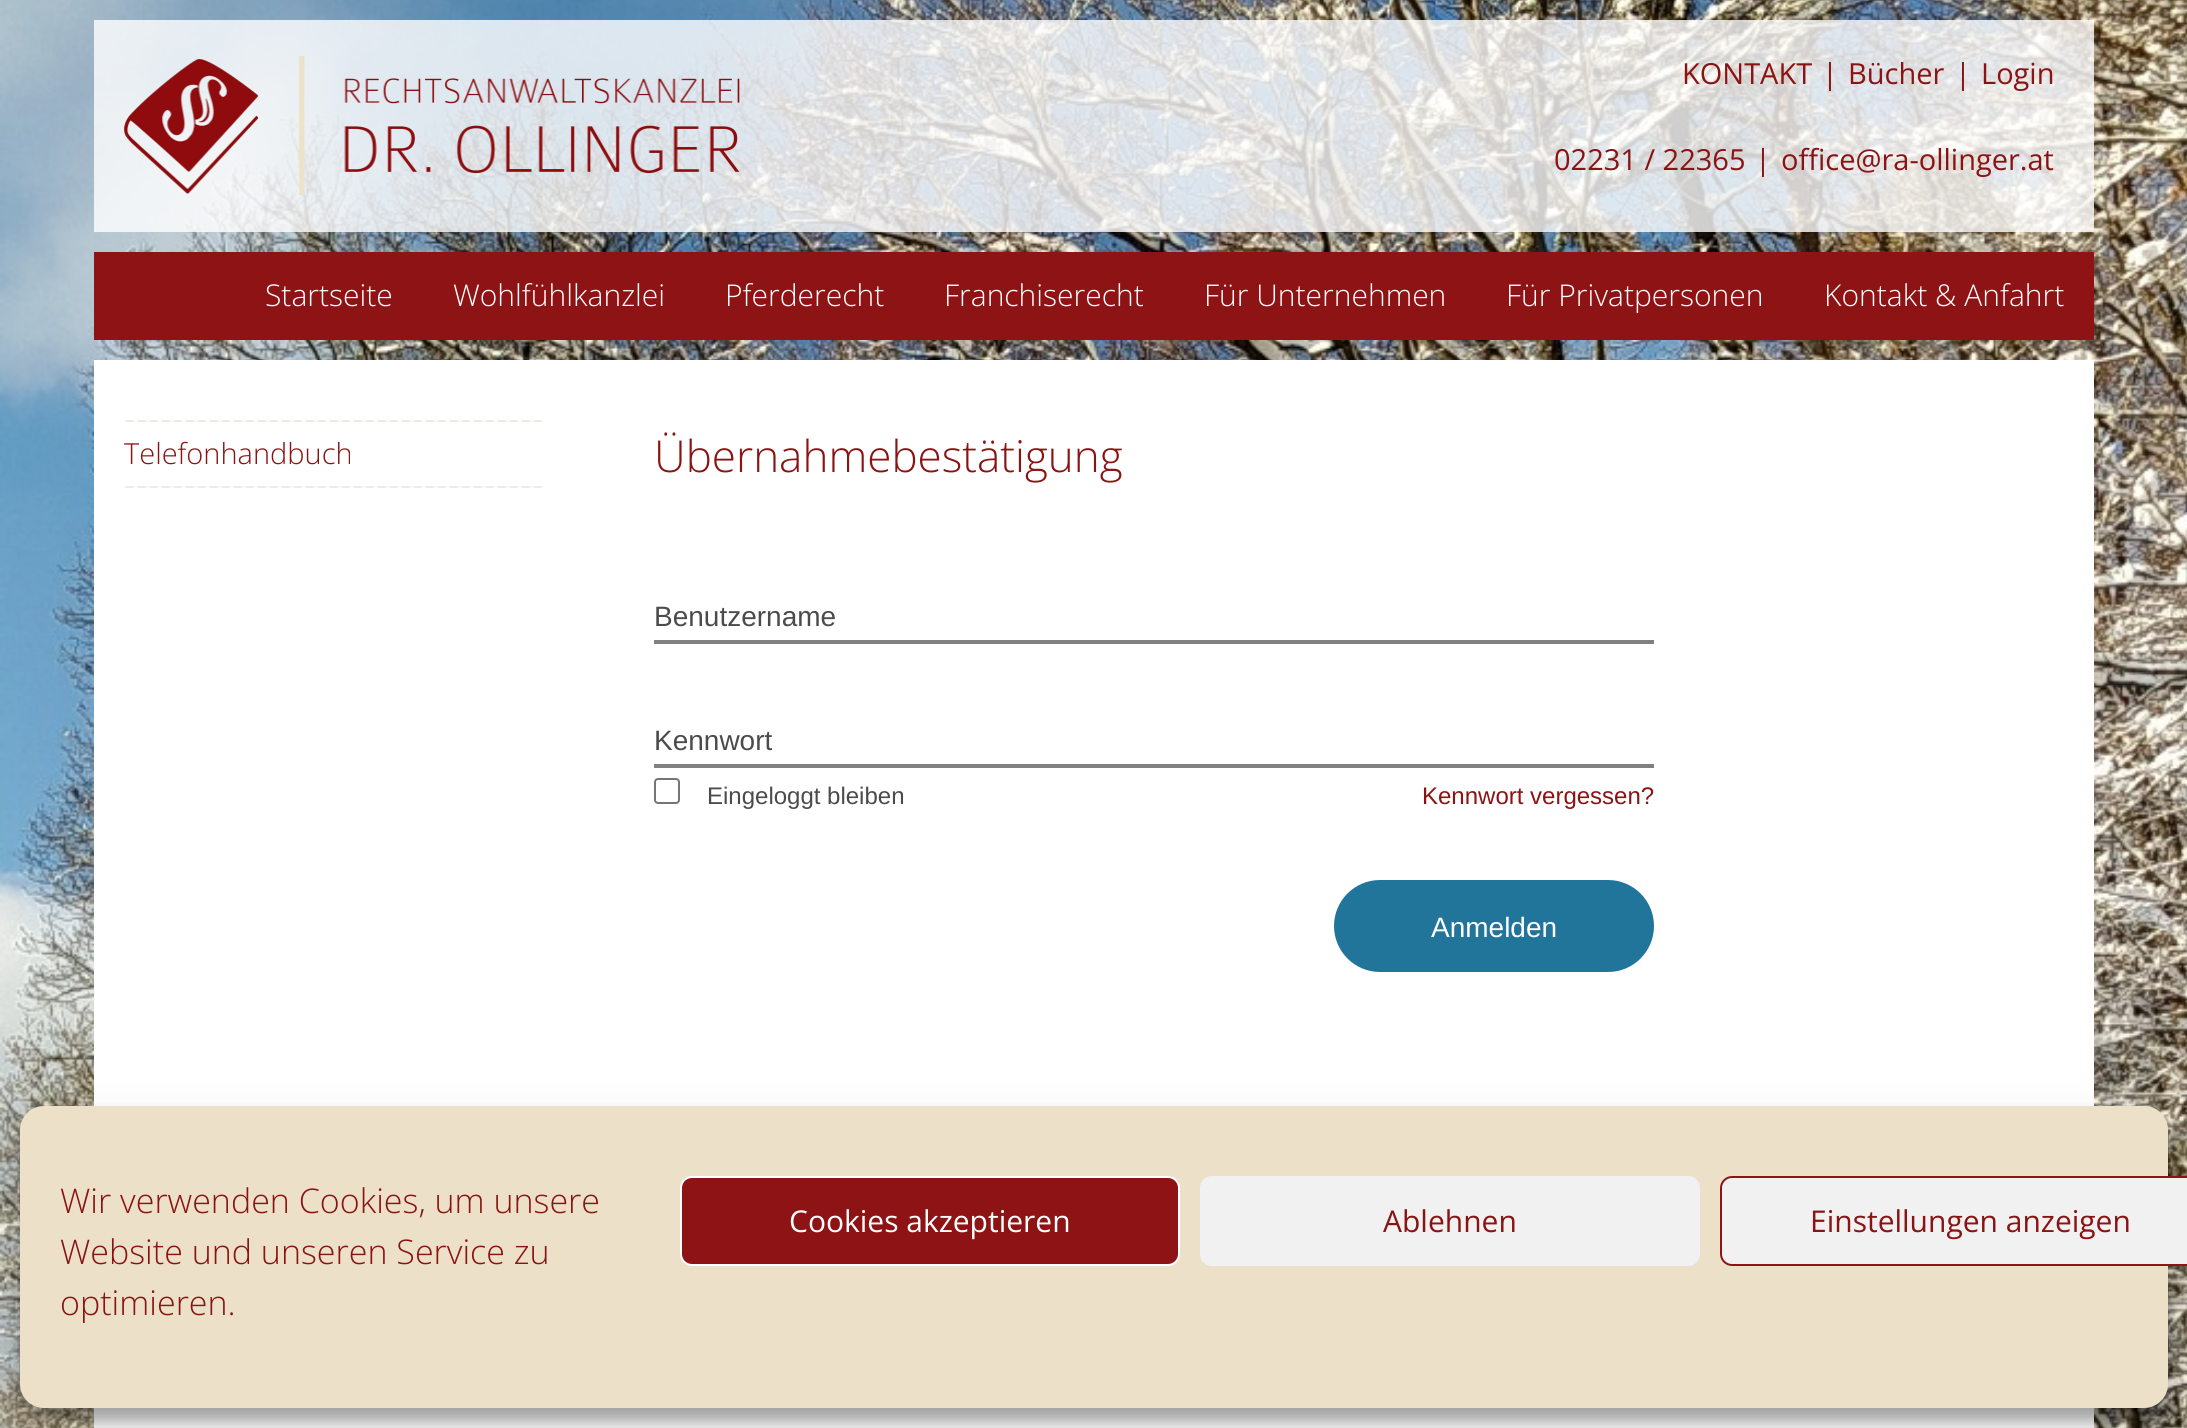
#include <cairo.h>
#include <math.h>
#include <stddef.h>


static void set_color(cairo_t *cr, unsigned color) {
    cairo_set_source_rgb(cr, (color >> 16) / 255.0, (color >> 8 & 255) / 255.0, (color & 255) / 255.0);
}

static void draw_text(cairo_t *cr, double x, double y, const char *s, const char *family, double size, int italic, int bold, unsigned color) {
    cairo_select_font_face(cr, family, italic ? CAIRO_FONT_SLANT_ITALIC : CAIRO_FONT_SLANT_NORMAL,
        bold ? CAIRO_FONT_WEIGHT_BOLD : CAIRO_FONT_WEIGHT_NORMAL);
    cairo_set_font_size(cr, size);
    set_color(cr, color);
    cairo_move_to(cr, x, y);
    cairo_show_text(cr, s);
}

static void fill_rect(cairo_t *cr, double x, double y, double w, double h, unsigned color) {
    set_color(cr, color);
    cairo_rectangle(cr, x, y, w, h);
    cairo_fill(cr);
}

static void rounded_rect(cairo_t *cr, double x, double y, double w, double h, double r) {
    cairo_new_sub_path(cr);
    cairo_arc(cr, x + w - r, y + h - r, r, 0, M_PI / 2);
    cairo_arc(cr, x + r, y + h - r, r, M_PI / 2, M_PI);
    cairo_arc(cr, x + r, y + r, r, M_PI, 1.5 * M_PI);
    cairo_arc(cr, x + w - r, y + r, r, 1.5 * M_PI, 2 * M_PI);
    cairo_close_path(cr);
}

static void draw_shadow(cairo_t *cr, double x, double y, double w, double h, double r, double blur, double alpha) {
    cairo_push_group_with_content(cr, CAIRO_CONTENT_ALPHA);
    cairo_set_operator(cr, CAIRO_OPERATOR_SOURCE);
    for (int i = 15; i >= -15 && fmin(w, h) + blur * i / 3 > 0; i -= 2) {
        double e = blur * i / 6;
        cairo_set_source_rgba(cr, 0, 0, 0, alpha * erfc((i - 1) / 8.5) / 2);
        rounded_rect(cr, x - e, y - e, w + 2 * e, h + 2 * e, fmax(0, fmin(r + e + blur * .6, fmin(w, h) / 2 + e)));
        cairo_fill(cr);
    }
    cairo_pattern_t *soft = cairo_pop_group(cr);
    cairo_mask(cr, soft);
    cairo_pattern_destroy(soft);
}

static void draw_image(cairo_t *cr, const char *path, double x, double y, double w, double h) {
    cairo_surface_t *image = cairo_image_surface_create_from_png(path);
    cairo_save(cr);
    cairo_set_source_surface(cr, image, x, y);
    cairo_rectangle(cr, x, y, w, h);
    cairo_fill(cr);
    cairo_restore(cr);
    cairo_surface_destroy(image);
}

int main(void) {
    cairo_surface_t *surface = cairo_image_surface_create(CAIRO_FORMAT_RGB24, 2187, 1428);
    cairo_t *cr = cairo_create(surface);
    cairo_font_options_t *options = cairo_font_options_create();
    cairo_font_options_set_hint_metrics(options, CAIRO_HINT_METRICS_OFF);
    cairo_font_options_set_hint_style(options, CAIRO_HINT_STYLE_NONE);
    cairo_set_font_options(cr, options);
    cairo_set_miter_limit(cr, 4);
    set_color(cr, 0xFFFFFF);
    cairo_paint(cr);
    draw_image(cr, "assets/img1.png", 0, 0, 2187, 1428);
    cairo_set_source_rgba(cr, 1, 1, 1, 0.8);
    cairo_rectangle(cr, 94, 20, 2000, 212);
    cairo_fill(cr);
    draw_image(cr, "assets/img2.png", 124, 56, 616, 140);
    draw_text(cr, 1682, 84, "KONTAKT", "Open Sans", 29, 0, 0, 0x8A1313);
    draw_text(cr, 1822, 84, "|", "Open Sans", 29, 0, 0, 0x8A1313);
    draw_text(cr, 1848, 84, "Bücher", "Open Sans", 29, 0, 0, 0x8A1313);
    draw_text(cr, 1955, 84, "|", "Open Sans", 29, 0, 0, 0x8A1313);
    draw_text(cr, 1981, 84, "Login", "Open Sans", 29, 0, 0, 0x8A1313);
    draw_text(cr, 1554, 170, "02231 / 22365", "Open Sans", 29, 0, 0, 0x8A1313);
    draw_text(cr, 1755, 170, "|", "Open Sans", 29, 0, 0, 0x8A1313);
    draw_text(cr, 1781, 170, "office@ra-ollinger.at", "Open Sans", 29, 0, 0, 0x8A1313);
    fill_rect(cr, 94, 252, 2000, 88, 0x8E1315);
    draw_text(cr, 265, 306, "Startseite", "Open Sans Light", 30, 0, 0, 0xFFFFFF);
    draw_text(cr, 453, 306, "Wohlfühlkanzlei", "Open Sans Light", 30, 0, 0, 0xFFFFFF);
    draw_text(cr, 725, 306, "Pferderecht", "Open Sans Light", 30, 0, 0, 0xFFFFFF);
    draw_text(cr, 944, 306, "Franchiserecht", "Open Sans Light", 30, 0, 0, 0xFFFFFF);
    draw_text(cr, 1204, 306, "Für Unternehmen", "Open Sans Light", 30, 0, 0, 0xFFFFFF);
    draw_text(cr, 1506, 306, "Für Privatpersonen", "Open Sans Light", 30, 0, 0, 0xFFFFFF);
    draw_text(cr, 1824, 306, "Kontakt & Anfahrt", "Open Sans Light", 30, 0, 0, 0xFFFFFF);
    fill_rect(cr, 94, 360, 2000, 746, 0xFFFFFF);
    draw_image(cr, "assets/img3.png", 124, 486, 420, 2);
    draw_image(cr, "assets/img3.png", 124, 420, 420, 2);
    draw_text(cr, 124, 464, "Telefonhandbuch", "Open Sans Light", 29, 0, 0, 0x8A1313);
    draw_text(cr, 654, 472, "Übernahmebestätigung", "Open Sans Light", 44, 0, 0, 0x8A1313);
    draw_text(cr, 654, 626, "Benutzername", "Liberation Sans", 28, 0, 0, 0x4B4B4B);
    fill_rect(cr, 654, 640, 1000, 4, 0x808080);
    draw_text(cr, 654, 750, "Kennwort", "Liberation Sans", 28, 0, 0, 0x4B4B4B);
    fill_rect(cr, 654, 764, 1000, 4, 0x808080);
    rounded_rect(cr, 655, 779, 24, 24, 3);
    set_color(cr, 0x767676);
    cairo_stroke(cr);
    draw_text(cr, 707, 804, "Eingeloggt bleiben", "Liberation Sans", 24, 0, 0, 0x4B4B4B);
    draw_text(cr, 1422, 804, "Kennwort vergessen?", "Liberation Sans", 24, 0, 0, 0x8A1313);
    set_color(cr, 0x21759B);
    rounded_rect(cr, 1334, 880, 320, 92, 46);
    cairo_fill(cr);
    draw_text(cr, 1431, 937, "Anmelden", "Liberation Sans", 28, 0, 0, 0xFFFFFF);
    fill_rect(cr, 94, 1408, 2000, 20, 0xFFFFFF);
    set_color(cr, 0x000000);
    draw_shadow(cr, 20, 1118, 2148, 302, 24, 6, 0.23);
    draw_shadow(cr, 20, 1126, 2148, 302, 24, 20, 0.19);
    set_color(cr, 0xECE1C8);
    rounded_rect(cr, 20, 1106, 2148, 302, 24);
    cairo_fill(cr);
    draw_text(cr, 60, 1213, "Wir verwenden Cookies, um unsere", "Open Sans Light", 34, 0, 0, 0x8A1313);
    draw_text(cr, 60, 1264, "Website und unseren Service zu", "Open Sans Light", 34, 0, 0, 0x8A1313);
    draw_text(cr, 60, 1315, "optimieren.", "Open Sans Light", 34, 0, 0, 0x8A1313);
    set_color(cr, 0x8E1315);
    rounded_rect(cr, 681, 1177, 498, 88, 11);
    cairo_fill_preserve(cr);
    set_color(cr, 0xFFFFFF);
    cairo_stroke(cr);
    draw_text(cr, 789, 1232, "Cookies akzeptieren", "Open Sans", 30, 0, 0, 0xFFFFFF);
    set_color(cr, 0xF1F1F1);
    rounded_rect(cr, 1201, 1177, 498, 88, 11);
    cairo_fill_preserve(cr);
    cairo_stroke(cr);
    draw_text(cr, 1383, 1232, "Ablehnen", "Open Sans", 30, 0, 0, 0x8A1313);
    set_color(cr, 0xF1F1F1);
    rounded_rect(cr, 1721, 1177, 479, 88, 11);
    cairo_fill_preserve(cr);
    set_color(cr, 0x8E1315);
    cairo_stroke(cr);
    draw_text(cr, 1810, 1232, "Einstellungen anzeigen", "Open Sans", 30, 0, 0, 0x8A1313);
    cairo_surface_write_to_png(surface, "output.png");
    cairo_font_options_destroy(options);
    cairo_destroy(cr);
    cairo_surface_destroy(surface);
    return 0;
}
